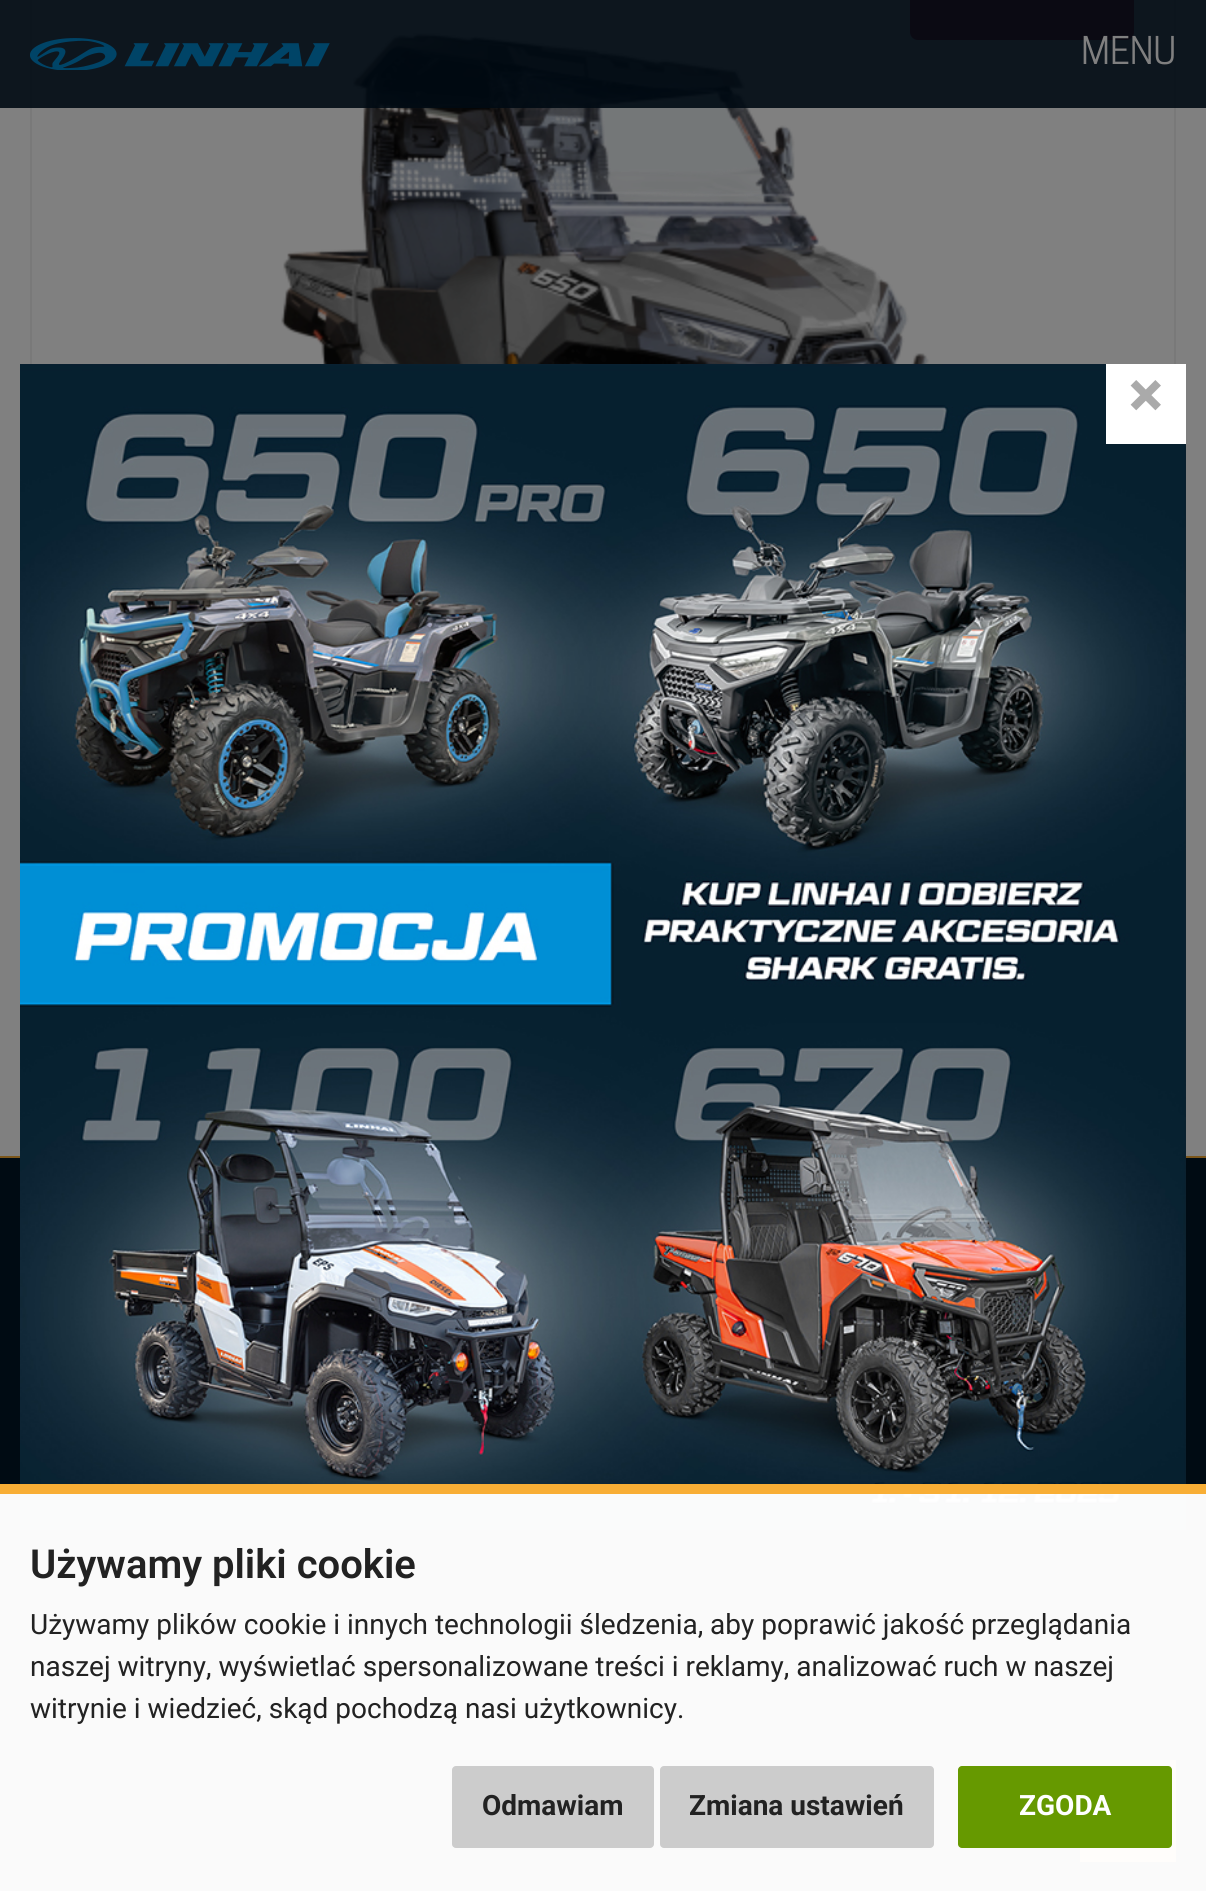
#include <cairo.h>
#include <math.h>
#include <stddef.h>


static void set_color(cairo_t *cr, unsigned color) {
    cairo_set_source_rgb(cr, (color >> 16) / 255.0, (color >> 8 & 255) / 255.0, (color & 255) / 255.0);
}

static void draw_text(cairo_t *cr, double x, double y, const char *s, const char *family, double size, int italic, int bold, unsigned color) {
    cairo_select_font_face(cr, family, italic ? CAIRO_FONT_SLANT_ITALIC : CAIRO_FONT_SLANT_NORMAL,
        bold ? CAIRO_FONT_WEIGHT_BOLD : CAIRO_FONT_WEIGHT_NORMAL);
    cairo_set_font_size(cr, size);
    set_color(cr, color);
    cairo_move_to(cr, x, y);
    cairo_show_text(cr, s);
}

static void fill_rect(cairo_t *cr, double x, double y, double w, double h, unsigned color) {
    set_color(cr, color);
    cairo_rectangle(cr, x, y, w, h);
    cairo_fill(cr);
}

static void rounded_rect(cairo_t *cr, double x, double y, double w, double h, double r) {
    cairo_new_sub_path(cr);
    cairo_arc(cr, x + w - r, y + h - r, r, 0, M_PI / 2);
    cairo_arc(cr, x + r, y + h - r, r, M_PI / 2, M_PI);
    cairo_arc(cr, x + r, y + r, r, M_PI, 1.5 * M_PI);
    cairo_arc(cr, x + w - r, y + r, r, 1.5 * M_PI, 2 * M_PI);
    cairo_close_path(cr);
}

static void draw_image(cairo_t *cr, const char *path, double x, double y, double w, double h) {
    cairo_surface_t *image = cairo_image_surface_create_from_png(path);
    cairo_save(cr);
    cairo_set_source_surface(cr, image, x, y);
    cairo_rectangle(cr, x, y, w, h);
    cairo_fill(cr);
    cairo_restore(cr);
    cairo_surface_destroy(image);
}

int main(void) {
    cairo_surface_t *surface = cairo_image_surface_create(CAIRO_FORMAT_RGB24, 1206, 1891);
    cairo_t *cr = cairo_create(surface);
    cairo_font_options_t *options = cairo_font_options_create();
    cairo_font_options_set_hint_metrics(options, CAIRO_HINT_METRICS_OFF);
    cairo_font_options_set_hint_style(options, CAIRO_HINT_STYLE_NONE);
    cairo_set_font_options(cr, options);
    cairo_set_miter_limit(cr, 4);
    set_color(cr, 0x000B13);
    cairo_paint(cr);
    fill_rect(cr, 0, 0, 1206, 1156, 0x808080);
    cairo_rectangle(cr, 31, -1, 1144, 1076);
    set_color(cr, 0x797979);
    cairo_stroke(cr);
    draw_image(cr, "assets/img1.png", 281, 33, 648, 331);
    set_color(cr, 0x710619);
    rounded_rect(cr, 910, -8, 224, 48, 8);
    cairo_fill(cr);
    cairo_set_source_rgba(cr, 0, 0.043, 0.075, 0.9);
    cairo_rectangle(cr, 0, 0, 1206, 108);
    cairo_fill(cr);
    draw_image(cr, "assets/img2.png", 30, 38, 300, 32);
    draw_text(cr, 1081, 64, "MENU", "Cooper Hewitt", 36, 0, 0, 0x808080);
    fill_rect(cr, 0, 1156, 1206, 2, 0x7C571B);
    draw_image(cr, "assets/img3.png", 20, 364, 1166, 1166);
    fill_rect(cr, 1106, 364, 80, 80, 0xFFFFFF);
    draw_text(cr, 1129, 417, "×", "Cooper Hewitt", 56, 0, 1, 0xAAAAAA);
    fill_rect(cr, 1080, 1760, 96, 102, 0xF8AE35);
    cairo_set_source_rgba(cr, 1, 1, 1, 0.98);
    cairo_rectangle(cr, 0, 1494, 1206, 397);
    cairo_fill(cr);
    fill_rect(cr, 0, 1484, 1206, 10, 0xF8AE35);
    draw_text(cr, 30, 1578, "Używamy pliki cookie", "Roboto SemiBold", 40, 0, 0, 0x222222);
    draw_text(cr, 30, 1634, "Używamy plików cookie i innych technologii śledzenia, aby poprawić jakość przeglądania", "Roboto", 28, 0, 0, 0x222222);
    draw_text(cr, 30, 1676, "naszej witryny, wyświetlać spersonalizowane treści i reklamy, analizować ruch w naszej", "Roboto", 28, 0, 0, 0x222222);
    draw_text(cr, 30, 1718, "witrynie i wiedzieć, skąd pochodzą nasi użytkownicy.", "Roboto", 28, 0, 0, 0x222222);
    set_color(cr, 0xCCCCCC);
    rounded_rect(cr, 452, 1766, 202, 82, 4);
    cairo_fill(cr);
    draw_text(cr, 482, 1815, "Odmawiam", "Roboto", 28, 0, 1, 0x222222);
    set_color(cr, 0xCCCCCC);
    rounded_rect(cr, 660, 1766, 274, 82, 4);
    cairo_fill(cr);
    draw_text(cr, 689, 1815, "Zmiana ustawień", "Roboto", 28, 0, 1, 0x222222);
    set_color(cr, 0x669900);
    rounded_rect(cr, 958, 1766, 214, 82, 4);
    cairo_fill(cr);
    draw_text(cr, 1019, 1815, "ZGODA", "Roboto", 28, 0, 1, 0xFFFFFF);
    cairo_surface_write_to_png(surface, "output.png");
    cairo_font_options_destroy(options);
    cairo_destroy(cr);
    cairo_surface_destroy(surface);
    return 0;
}
